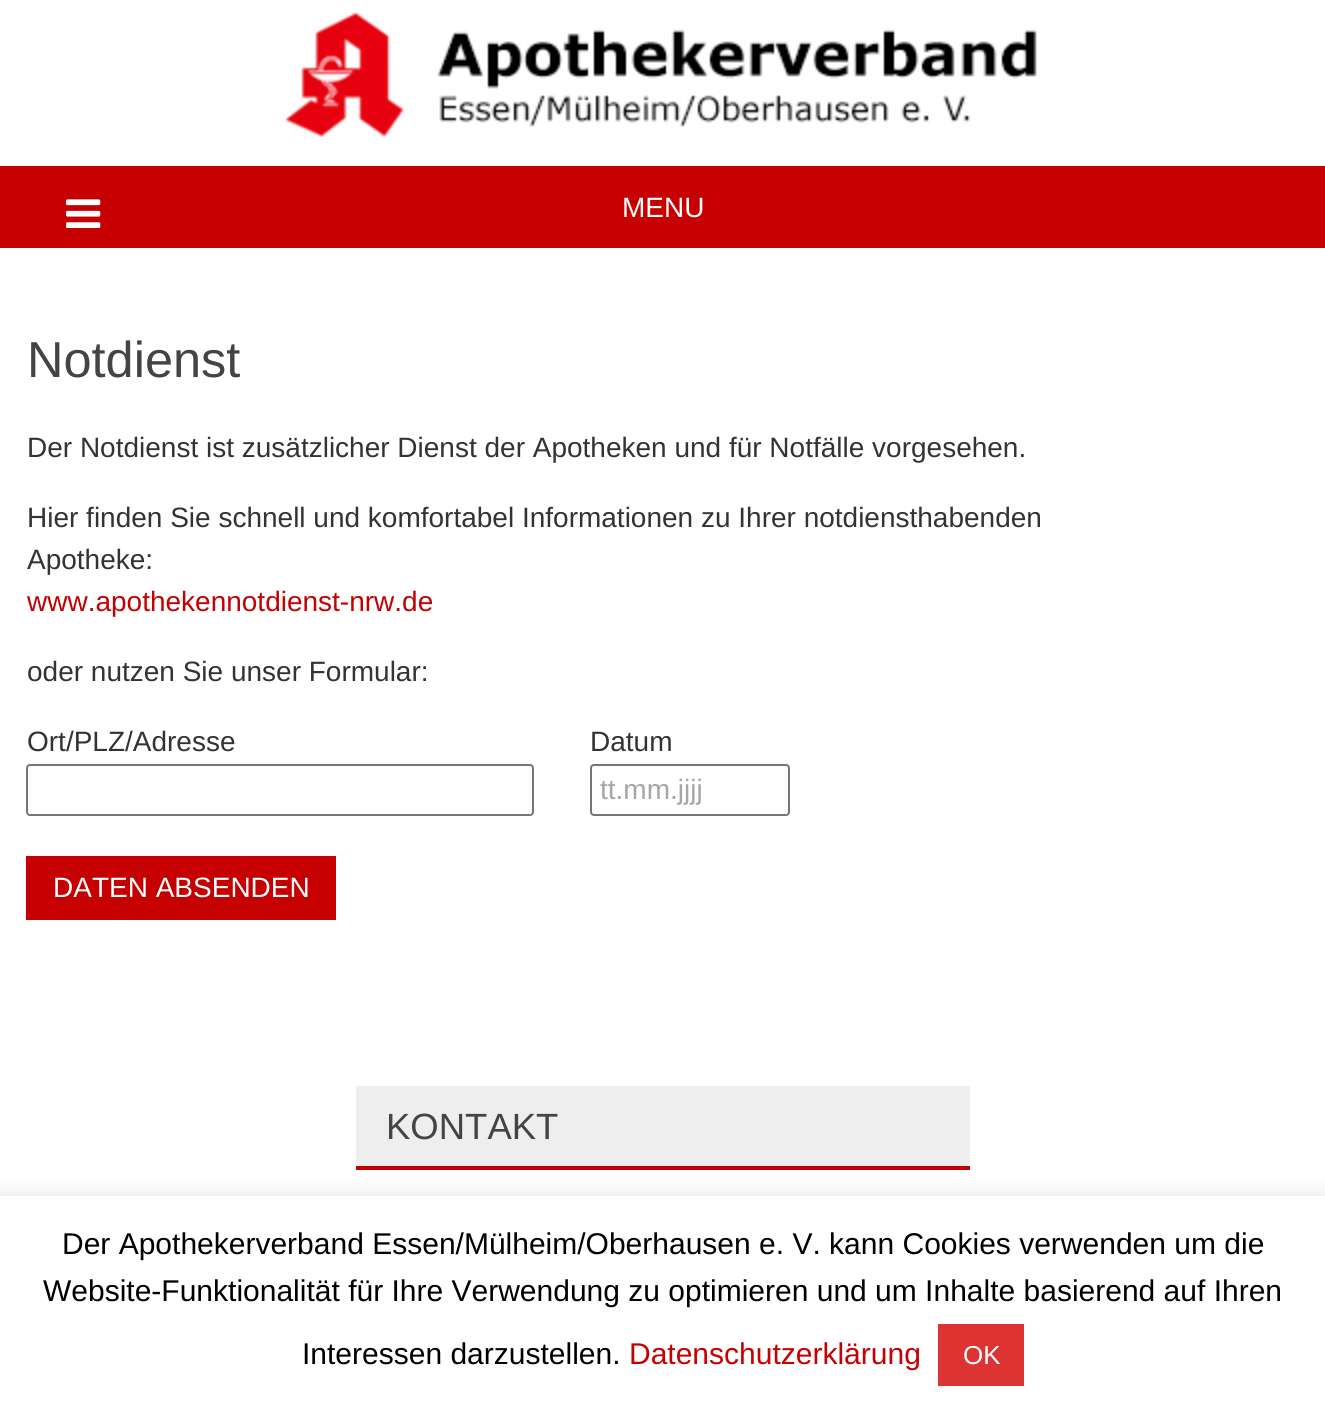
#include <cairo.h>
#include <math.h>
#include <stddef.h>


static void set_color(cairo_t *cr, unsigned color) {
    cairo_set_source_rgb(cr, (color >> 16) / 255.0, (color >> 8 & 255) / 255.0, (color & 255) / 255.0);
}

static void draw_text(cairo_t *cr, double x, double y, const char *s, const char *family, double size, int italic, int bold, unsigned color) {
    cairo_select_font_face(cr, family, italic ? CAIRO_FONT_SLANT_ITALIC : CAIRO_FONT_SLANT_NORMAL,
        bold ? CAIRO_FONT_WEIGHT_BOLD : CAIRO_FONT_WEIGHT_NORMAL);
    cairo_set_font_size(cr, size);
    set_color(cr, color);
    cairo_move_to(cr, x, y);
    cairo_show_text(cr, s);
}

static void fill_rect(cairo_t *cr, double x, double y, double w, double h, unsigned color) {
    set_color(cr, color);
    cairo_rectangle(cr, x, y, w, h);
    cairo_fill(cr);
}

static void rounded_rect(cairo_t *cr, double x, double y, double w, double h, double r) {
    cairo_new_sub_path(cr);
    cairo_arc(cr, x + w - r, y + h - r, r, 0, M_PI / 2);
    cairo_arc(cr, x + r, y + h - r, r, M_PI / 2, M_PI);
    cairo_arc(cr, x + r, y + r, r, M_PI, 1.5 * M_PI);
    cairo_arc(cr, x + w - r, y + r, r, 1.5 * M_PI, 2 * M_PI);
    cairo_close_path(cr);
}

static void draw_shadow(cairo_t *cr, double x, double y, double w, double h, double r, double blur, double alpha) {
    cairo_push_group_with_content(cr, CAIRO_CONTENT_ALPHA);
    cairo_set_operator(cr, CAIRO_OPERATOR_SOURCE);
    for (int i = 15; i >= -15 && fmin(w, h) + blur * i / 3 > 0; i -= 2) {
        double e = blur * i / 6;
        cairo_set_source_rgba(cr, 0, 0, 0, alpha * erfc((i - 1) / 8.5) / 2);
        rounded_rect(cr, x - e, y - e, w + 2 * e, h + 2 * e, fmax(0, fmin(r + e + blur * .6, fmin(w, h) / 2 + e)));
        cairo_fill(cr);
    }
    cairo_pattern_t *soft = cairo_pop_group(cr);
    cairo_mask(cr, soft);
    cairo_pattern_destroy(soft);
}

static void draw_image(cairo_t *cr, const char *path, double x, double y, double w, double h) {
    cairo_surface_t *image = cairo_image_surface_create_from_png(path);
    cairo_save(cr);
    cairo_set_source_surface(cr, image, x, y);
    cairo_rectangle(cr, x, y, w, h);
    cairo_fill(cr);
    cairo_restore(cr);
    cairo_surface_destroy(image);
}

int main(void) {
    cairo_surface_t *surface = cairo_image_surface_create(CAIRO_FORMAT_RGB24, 1325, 1410);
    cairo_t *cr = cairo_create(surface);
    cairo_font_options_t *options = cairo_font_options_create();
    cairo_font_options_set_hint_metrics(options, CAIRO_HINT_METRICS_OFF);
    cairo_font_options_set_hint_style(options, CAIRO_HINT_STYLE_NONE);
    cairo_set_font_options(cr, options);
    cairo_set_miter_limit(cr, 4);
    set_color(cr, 0xFFFFFF);
    cairo_paint(cr);
    draw_image(cr, "assets/img1.png", 286, 12, 751, 125);
    fill_rect(cr, 0, 166, 1325, 82, 0xC60000);
    draw_image(cr, "assets/img2.png", 66, 199, 35, 29);
    draw_text(cr, 622, 217, "MENU", "Liberation Sans", 28, 0, 0, 0xFFFFFF);
    draw_text(cr, 27, 377, "Notdienst", "Liberation Sans", 50.5, 0, 0, 0x444444);
    draw_text(cr, 27, 457, "Der Notdienst ist zusätzlicher Dienst der Apotheken und für Notfälle vorgesehen.", "Liberation Sans", 28, 0, 0, 0x333333);
    draw_text(cr, 27, 527, "Hier finden Sie schnell und komfortabel Informationen zu Ihrer notdiensthabenden", "Liberation Sans", 28, 0, 0, 0x333333);
    draw_text(cr, 27, 569, "Apotheke:", "Liberation Sans", 28, 0, 0, 0x333333);
    draw_text(cr, 27, 611, "www.apothekennotdienst-nrw.de", "Liberation Sans", 28, 0, 0, 0xC60000);
    draw_text(cr, 27, 681, "oder nutzen Sie unser Formular:", "Liberation Sans", 28, 0, 0, 0x333333);
    draw_text(cr, 27, 751, "Ort/PLZ/Adresse", "Liberation Sans", 28, 0, 0, 0x333333);
    rounded_rect(cr, 27, 765, 506, 50, 3);
    set_color(cr, 0x767676);
    cairo_stroke(cr);
    draw_text(cr, 590, 751, "Datum", "Liberation Sans", 28, 0, 0, 0x333333);
    rounded_rect(cr, 591, 765, 198, 50, 3);
    set_color(cr, 0x767676);
    cairo_stroke(cr);
    draw_text(cr, 600, 799, "tt.mm.jjjj", "Liberation Sans", 28, 0, 0, 0xA6A6A6);
    fill_rect(cr, 26, 856, 310, 64, 0xC60000);
    draw_text(cr, 53, 897, "DATEN ABSENDEN", "Liberation Sans", 28, 0, 0, 0xFFFFFF);
    fill_rect(cr, 356, 1086, 614, 80, 0xEEEEEE);
    fill_rect(cr, 356, 1166, 614, 4, 0xC60000);
    draw_text(cr, 386, 1139, "KONTAKT", "Liberation Sans", 36.5, 0, 0, 0x444444);
    set_color(cr, 0xACABAB);
    draw_shadow(cr, 0, 1194, 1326, 214, 0, 10, 0.3);
    fill_rect(cr, 0, 1196, 1325, 214, 0xFFFFFF);
    draw_text(cr, 62, 1254, "Der Apothekerverband Essen/Mülheim/Oberhausen e. V. kann Cookies verwenden um die", "Liberation Sans", 30, 0, 0, 0x000000);
    draw_text(cr, 43, 1301, "Website-Funktionalität für Ihre Verwendung zu optimieren und um Inhalte basierend auf Ihren", "Liberation Sans", 30, 0, 0, 0x000000);
    draw_text(cr, 302, 1364, "Interessen darzustellen.", "Liberation Sans", 30, 0, 0, 0x000000);
    draw_text(cr, 629, 1364, "Datenschutzerklärung", "Liberation Sans", 30, 0, 0, 0xC60000);
    fill_rect(cr, 938, 1324, 86, 62, 0xDD3333);
    draw_text(cr, 963, 1364, "OK", "Liberation Sans", 26, 0, 0, 0xFFFFFF);
    cairo_surface_write_to_png(surface, "output.png");
    cairo_font_options_destroy(options);
    cairo_destroy(cr);
    cairo_surface_destroy(surface);
    return 0;
}
